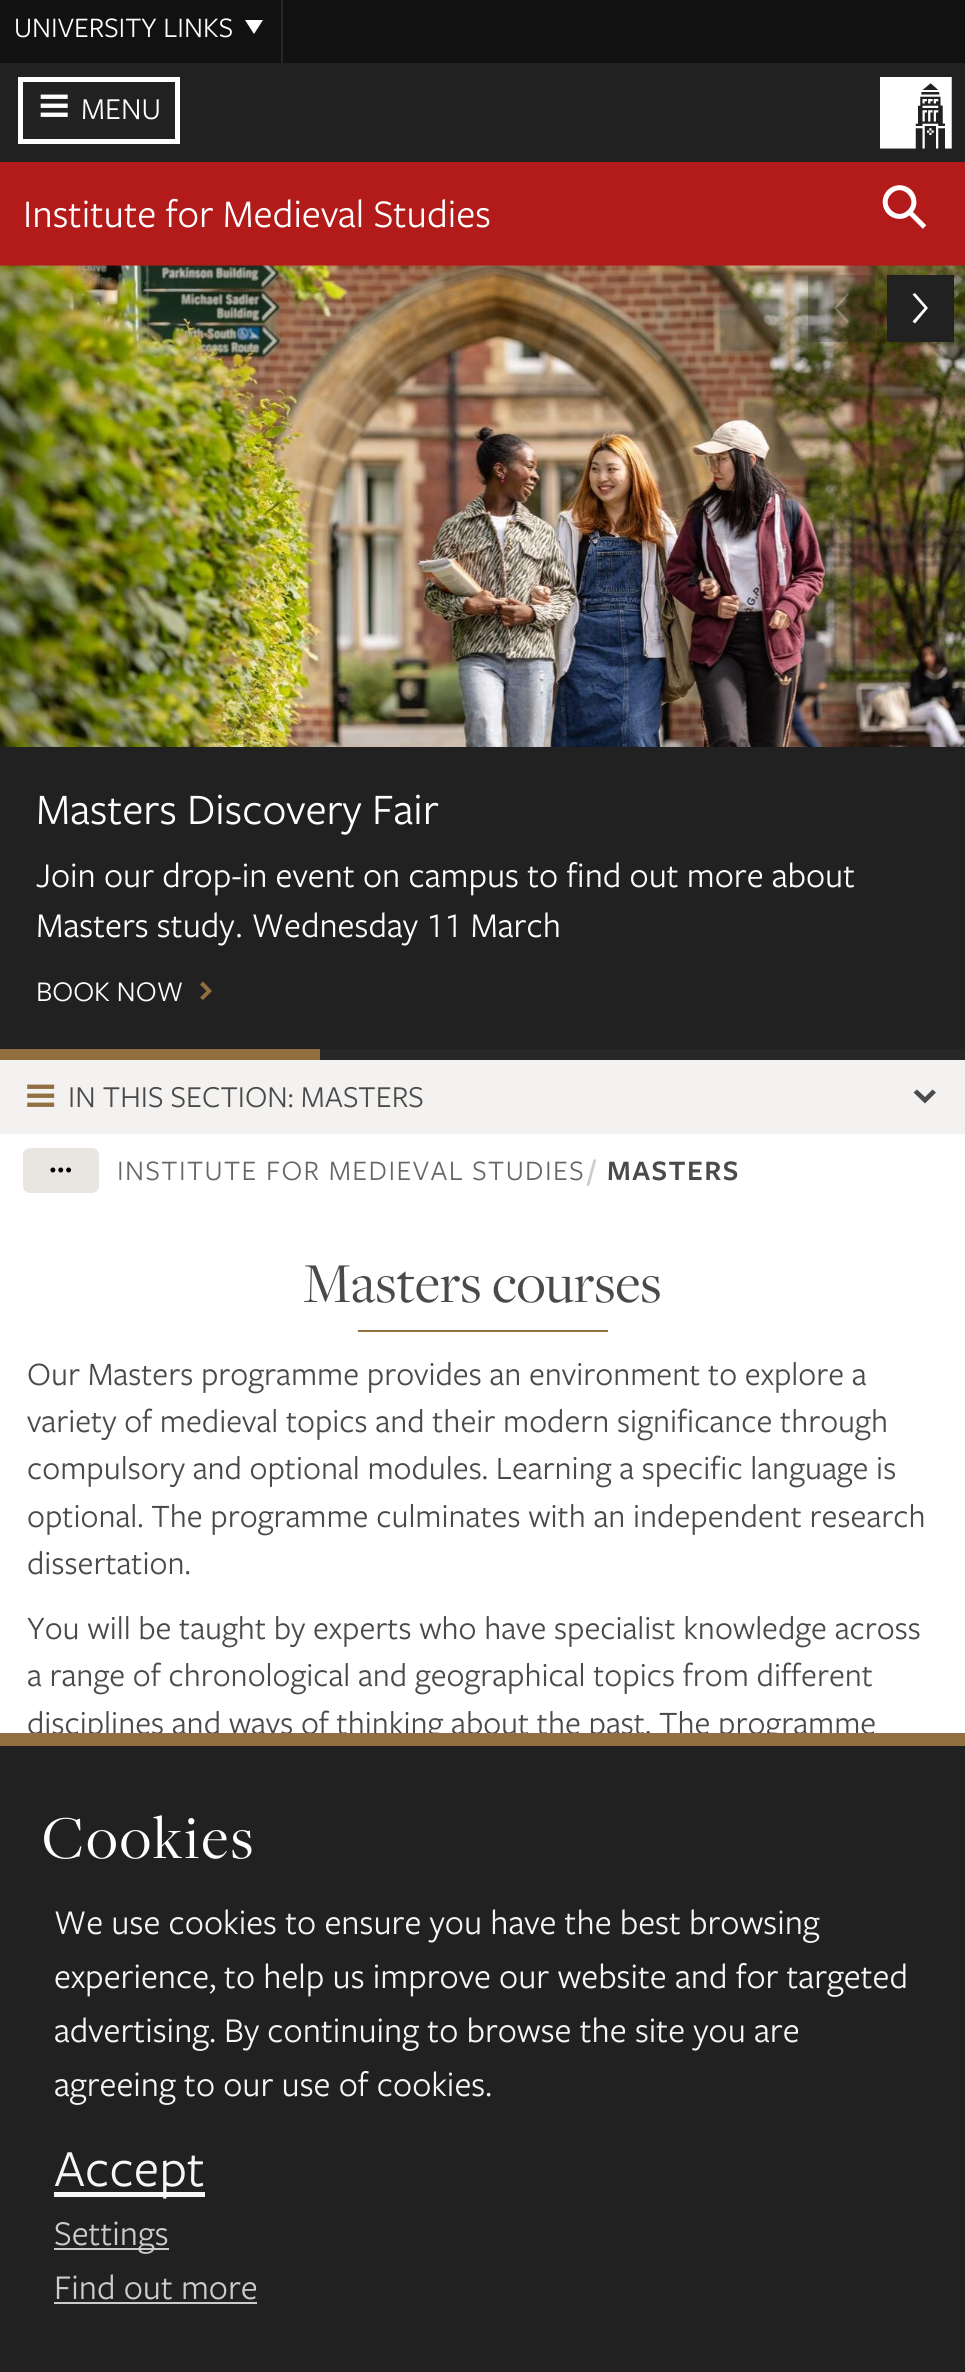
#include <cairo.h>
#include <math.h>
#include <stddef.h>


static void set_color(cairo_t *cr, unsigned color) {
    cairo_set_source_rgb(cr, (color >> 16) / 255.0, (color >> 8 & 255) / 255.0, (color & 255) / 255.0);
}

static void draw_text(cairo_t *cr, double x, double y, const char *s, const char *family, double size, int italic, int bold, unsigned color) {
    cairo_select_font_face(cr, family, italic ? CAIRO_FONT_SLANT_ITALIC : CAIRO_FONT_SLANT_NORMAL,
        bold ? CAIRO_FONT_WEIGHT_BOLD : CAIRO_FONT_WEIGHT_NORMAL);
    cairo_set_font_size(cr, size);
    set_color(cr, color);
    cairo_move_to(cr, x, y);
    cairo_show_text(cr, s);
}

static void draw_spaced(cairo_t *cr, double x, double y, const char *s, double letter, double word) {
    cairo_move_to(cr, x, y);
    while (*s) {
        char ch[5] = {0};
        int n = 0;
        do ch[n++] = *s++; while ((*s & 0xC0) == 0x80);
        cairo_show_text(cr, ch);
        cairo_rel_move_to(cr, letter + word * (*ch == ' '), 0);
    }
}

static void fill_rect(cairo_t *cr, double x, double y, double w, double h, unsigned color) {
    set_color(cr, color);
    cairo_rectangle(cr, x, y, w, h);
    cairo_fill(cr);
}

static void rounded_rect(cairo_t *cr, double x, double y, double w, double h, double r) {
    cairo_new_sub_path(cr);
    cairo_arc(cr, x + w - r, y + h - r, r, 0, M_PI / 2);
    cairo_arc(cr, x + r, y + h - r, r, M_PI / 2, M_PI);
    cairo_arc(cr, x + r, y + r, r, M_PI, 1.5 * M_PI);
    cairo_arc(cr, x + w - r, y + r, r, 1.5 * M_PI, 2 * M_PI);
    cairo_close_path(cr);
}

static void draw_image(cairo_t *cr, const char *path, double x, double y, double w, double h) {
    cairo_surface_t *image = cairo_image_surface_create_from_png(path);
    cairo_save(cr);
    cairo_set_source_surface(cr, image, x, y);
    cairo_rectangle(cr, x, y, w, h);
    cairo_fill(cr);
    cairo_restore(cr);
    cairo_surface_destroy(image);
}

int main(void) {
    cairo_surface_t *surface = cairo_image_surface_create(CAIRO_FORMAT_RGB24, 965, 2372);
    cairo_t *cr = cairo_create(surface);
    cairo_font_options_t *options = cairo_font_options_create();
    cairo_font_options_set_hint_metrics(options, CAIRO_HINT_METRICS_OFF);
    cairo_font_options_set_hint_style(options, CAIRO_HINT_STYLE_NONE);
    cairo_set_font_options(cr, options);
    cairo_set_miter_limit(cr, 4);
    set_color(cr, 0xFFFFFF);
    cairo_paint(cr);
    fill_rect(cr, 0, 0, 965, 63, 0x111111);
    fill_rect(cr, 281, 0, 2, 63, 0x272727);
    draw_text(cr, 14, 37, "UNIVERSITY LINKS", "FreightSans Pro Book", 29.25, 0, 0, 0xFFFFFF);
    cairo_new_path(cr);
    cairo_move_to(cr, 263, 20);
    cairo_line_to(cr, 254, 34);
    cairo_line_to(cr, 245, 20);
    cairo_close_path(cr);
    cairo_fill(cr);
    fill_rect(cr, 0, 63, 965, 99, 0x212121);
    cairo_rectangle(cr, 20.5, 79.5, 157, 62);
    set_color(cr, 0xFFFFFF);
    cairo_set_line_width(cr, 5);
    cairo_stroke(cr);
    draw_image(cr, "assets/img1.png", 40, 94, 28, 23);
    draw_text(cr, 81, 119, "MENU", "FreightSans Pro Book", 31.5, 0, 0, 0xFFFFFF);
    draw_image(cr, "assets/img2.png", 880, 77, 72, 72);
    fill_rect(cr, 0, 162, 965, 104, 0xB31B1B);
    draw_text(cr, 23, 227, "Institute for Medieval Studies", "FreightSans Pro Book", 40.5, 0, 0, 0xFFFFFF);
    draw_image(cr, "assets/img3.png", 882, 185, 45, 44);
    fill_rect(cr, 0, 746, 965, 303, 0x212121);
    draw_image(cr, "assets/img4.png", 0, 265, 965, 482);
    cairo_set_source_rgba(cr, 0.129, 0.129, 0.129, 0.25);
    cairo_rectangle(cr, 808, 275, 67, 67);
    cairo_fill(cr);
    cairo_set_source_rgba(cr, 1, 1, 1, 0.25);
    cairo_new_path(cr);
    cairo_move_to(cr, 847, 323.5);
    cairo_line_to(cr, 834, 308);
    cairo_line_to(cr, 847, 293);
    cairo_line_to(cr, 849, 294.5);
    cairo_line_to(cr, 837, 308);
    cairo_line_to(cr, 849, 321.5);
    cairo_close_path(cr);
    cairo_fill(cr);
    fill_rect(cr, 887, 275, 67, 67, 0x212121);
    set_color(cr, 0xFFFFFF);
    cairo_new_path(cr);
    cairo_move_to(cr, 915, 323.5);
    cairo_line_to(cr, 928, 308);
    cairo_line_to(cr, 915, 293);
    cairo_line_to(cr, 912.5, 294.5);
    cairo_line_to(cr, 924.5, 308);
    cairo_line_to(cr, 912.5, 321.5);
    cairo_close_path(cr);
    cairo_fill(cr);
    draw_text(cr, 36, 824, "Masters Discovery Fair", "FreightSans Pro Book", 45, 0, 0, 0xFFFFFF);
    draw_text(cr, 36, 887, "Join our drop-in event on campus to find out more about", "FreightSans Pro Book", 36, 0, 0, 0xFFFFFF);
    draw_text(cr, 36, 937, "Masters study. Wednesday 11 March", "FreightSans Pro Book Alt", 36, 0, 0, 0xFFFFFF);
    draw_text(cr, 36, 1001, "BOOK NOW", "FreightSans Pro Book", 29.5, 0, 0, 0xFFFFFF);
    set_color(cr, 0x916F40);
    cairo_new_path(cr);
    cairo_move_to(cr, 203, 1000);
    cairo_line_to(cr, 200, 997.5);
    cairo_line_to(cr, 206.5, 991);
    cairo_line_to(cr, 200, 984.5);
    cairo_line_to(cr, 203, 981.5);
    cairo_line_to(cr, 212, 991);
    cairo_close_path(cr);
    cairo_fill(cr);
    fill_rect(cr, 0, 1049, 320, 11, 0x916F40);
    fill_rect(cr, 320, 1049, 645, 11, 0x272727);
    fill_rect(cr, 0, 1060, 965, 74, 0xF4F2F0);
    draw_image(cr, "assets/img5.png", 27, 1084, 28, 23);
    draw_text(cr, 68, 1107, "IN THIS SECTION: MASTERS", "FreightSans Pro Book", 31.5, 0, 0, 0x4A4A4A);
    cairo_new_path(cr);
    cairo_move_to(cr, 925, 1103.5);
    cairo_line_to(cr, 913.5, 1092.5);
    cairo_line_to(cr, 917, 1089.5);
    cairo_line_to(cr, 925, 1097);
    cairo_line_to(cr, 932.5, 1089.5);
    cairo_line_to(cr, 936, 1092.5);
    cairo_close_path(cr);
    cairo_fill(cr);
    set_color(cr, 0xE9E5E1);
    rounded_rect(cr, 23, 1148, 76, 45, 7);
    cairo_fill(cr);
    draw_image(cr, "assets/img6.png", 50, 1167, 22, 6);
    cairo_set_font_size(cr, 29.25);
    set_color(cr, 0x666666);
    draw_spaced(cr, 117, 1180, "INSTITUTE FOR MEDIEVAL STUDIES", 1.45, 0);
    cairo_select_font_face(cr, "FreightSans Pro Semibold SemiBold", CAIRO_FONT_SLANT_NORMAL, CAIRO_FONT_WEIGHT_NORMAL);
    set_color(cr, 0xCCCCCC);
    draw_spaced(cr, 588, 1180, "/", 1.45, 0);
    set_color(cr, 0x4A4A4A);
    draw_spaced(cr, 607, 1180, "MASTERS", 1.45, 0);
    draw_text(cr, 303, 1302, "Masters courses", "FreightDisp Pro", 58.5, 0, 0, 0x4A4A4A);
    fill_rect(cr, 358, 1330, 250, 2, 0x916F40);
    draw_text(cr, 27, 1385, "Our Masters programme provides an environment to explore a", "FreightSans Pro Book", 33.75, 0, 0, 0x4A4A4A);
    draw_text(cr, 27, 1432, "variety of medieval topics and their modern significance through", "FreightSans Pro Book", 33.75, 0, 0, 0x4A4A4A);
    draw_text(cr, 27, 1479, "compulsory and optional modules. Learning a specific language is", "FreightSans Pro Book", 33.75, 0, 0, 0x4A4A4A);
    draw_text(cr, 27, 1527, "optional. The programme culminates with an independent research", "FreightSans Pro Book", 33.75, 0, 0, 0x4A4A4A);
    draw_text(cr, 27, 1574, "dissertation.", "FreightSans Pro Book", 33.75, 0, 0, 0x4A4A4A);
    draw_text(cr, 27, 1639, "You will be taught by experts who have specialist knowledge across", "FreightSans Pro Book", 33.75, 0, 0, 0x4A4A4A);
    draw_text(cr, 27, 1686, "a range of chronological and geographical topics from different", "FreightSans Pro Book", 33.75, 0, 0, 0x4A4A4A);
    draw_text(cr, 27, 1734, "disciplines and ways of thinking about the past. The programme", "FreightSans Pro Book", 33.75, 0, 0, 0x4A4A4A);
    fill_rect(cr, 0, 1746, 965, 626, 0x212121);
    fill_rect(cr, 0, 1733, 965, 13, 0x916F40);
    cairo_select_font_face(cr, "FreightDisp Pro", CAIRO_FONT_SLANT_NORMAL, CAIRO_FONT_WEIGHT_NORMAL);
    cairo_set_font_size(cr, 63);
    set_color(cr, 0xFFFFFF);
    draw_spaced(cr, 42, 1858, "Cookies", 2.25, 0);
    draw_text(cr, 54, 1934, "We use cookies to ensure you have the best browsing", "FreightSans Pro Book", 36, 0, 0, 0xF7F7F7);
    draw_text(cr, 54, 1988, "experience, to help us improve our website and for targeted", "FreightSans Pro Book", 36, 0, 0, 0xF7F7F7);
    draw_text(cr, 54, 2042, "advertising. By continuing to browse the site you are", "FreightSans Pro Book", 36, 0, 0, 0xF7F7F7);
    draw_text(cr, 54, 2096, "agreeing to our use of cookies.", "FreightSans Pro Book", 36, 0, 0, 0xF7F7F7);
    fill_rect(cr, 54, 2192, 151, 5, 0xF7F7F7);
    draw_text(cr, 54, 2186, "Accept", "FreightSans Pro Book", 54, 0, 0, 0xF7F7F7);
    fill_rect(cr, 54, 2248, 115, 2, 0xCCCCCC);
    draw_text(cr, 54, 2245, "Settings", "FreightSans Pro Book", 36, 0, 0, 0xCCCCCC);
    draw_text(cr, 54, 2299, "Find out more", "FreightSans Pro Book", 36, 0, 0, 0xCCCCCC);
    fill_rect(cr, 54, 2302, 203, 2, 0xCCCCCC);
    cairo_surface_write_to_png(surface, "output.png");
    cairo_font_options_destroy(options);
    cairo_destroy(cr);
    cairo_surface_destroy(surface);
    return 0;
}
